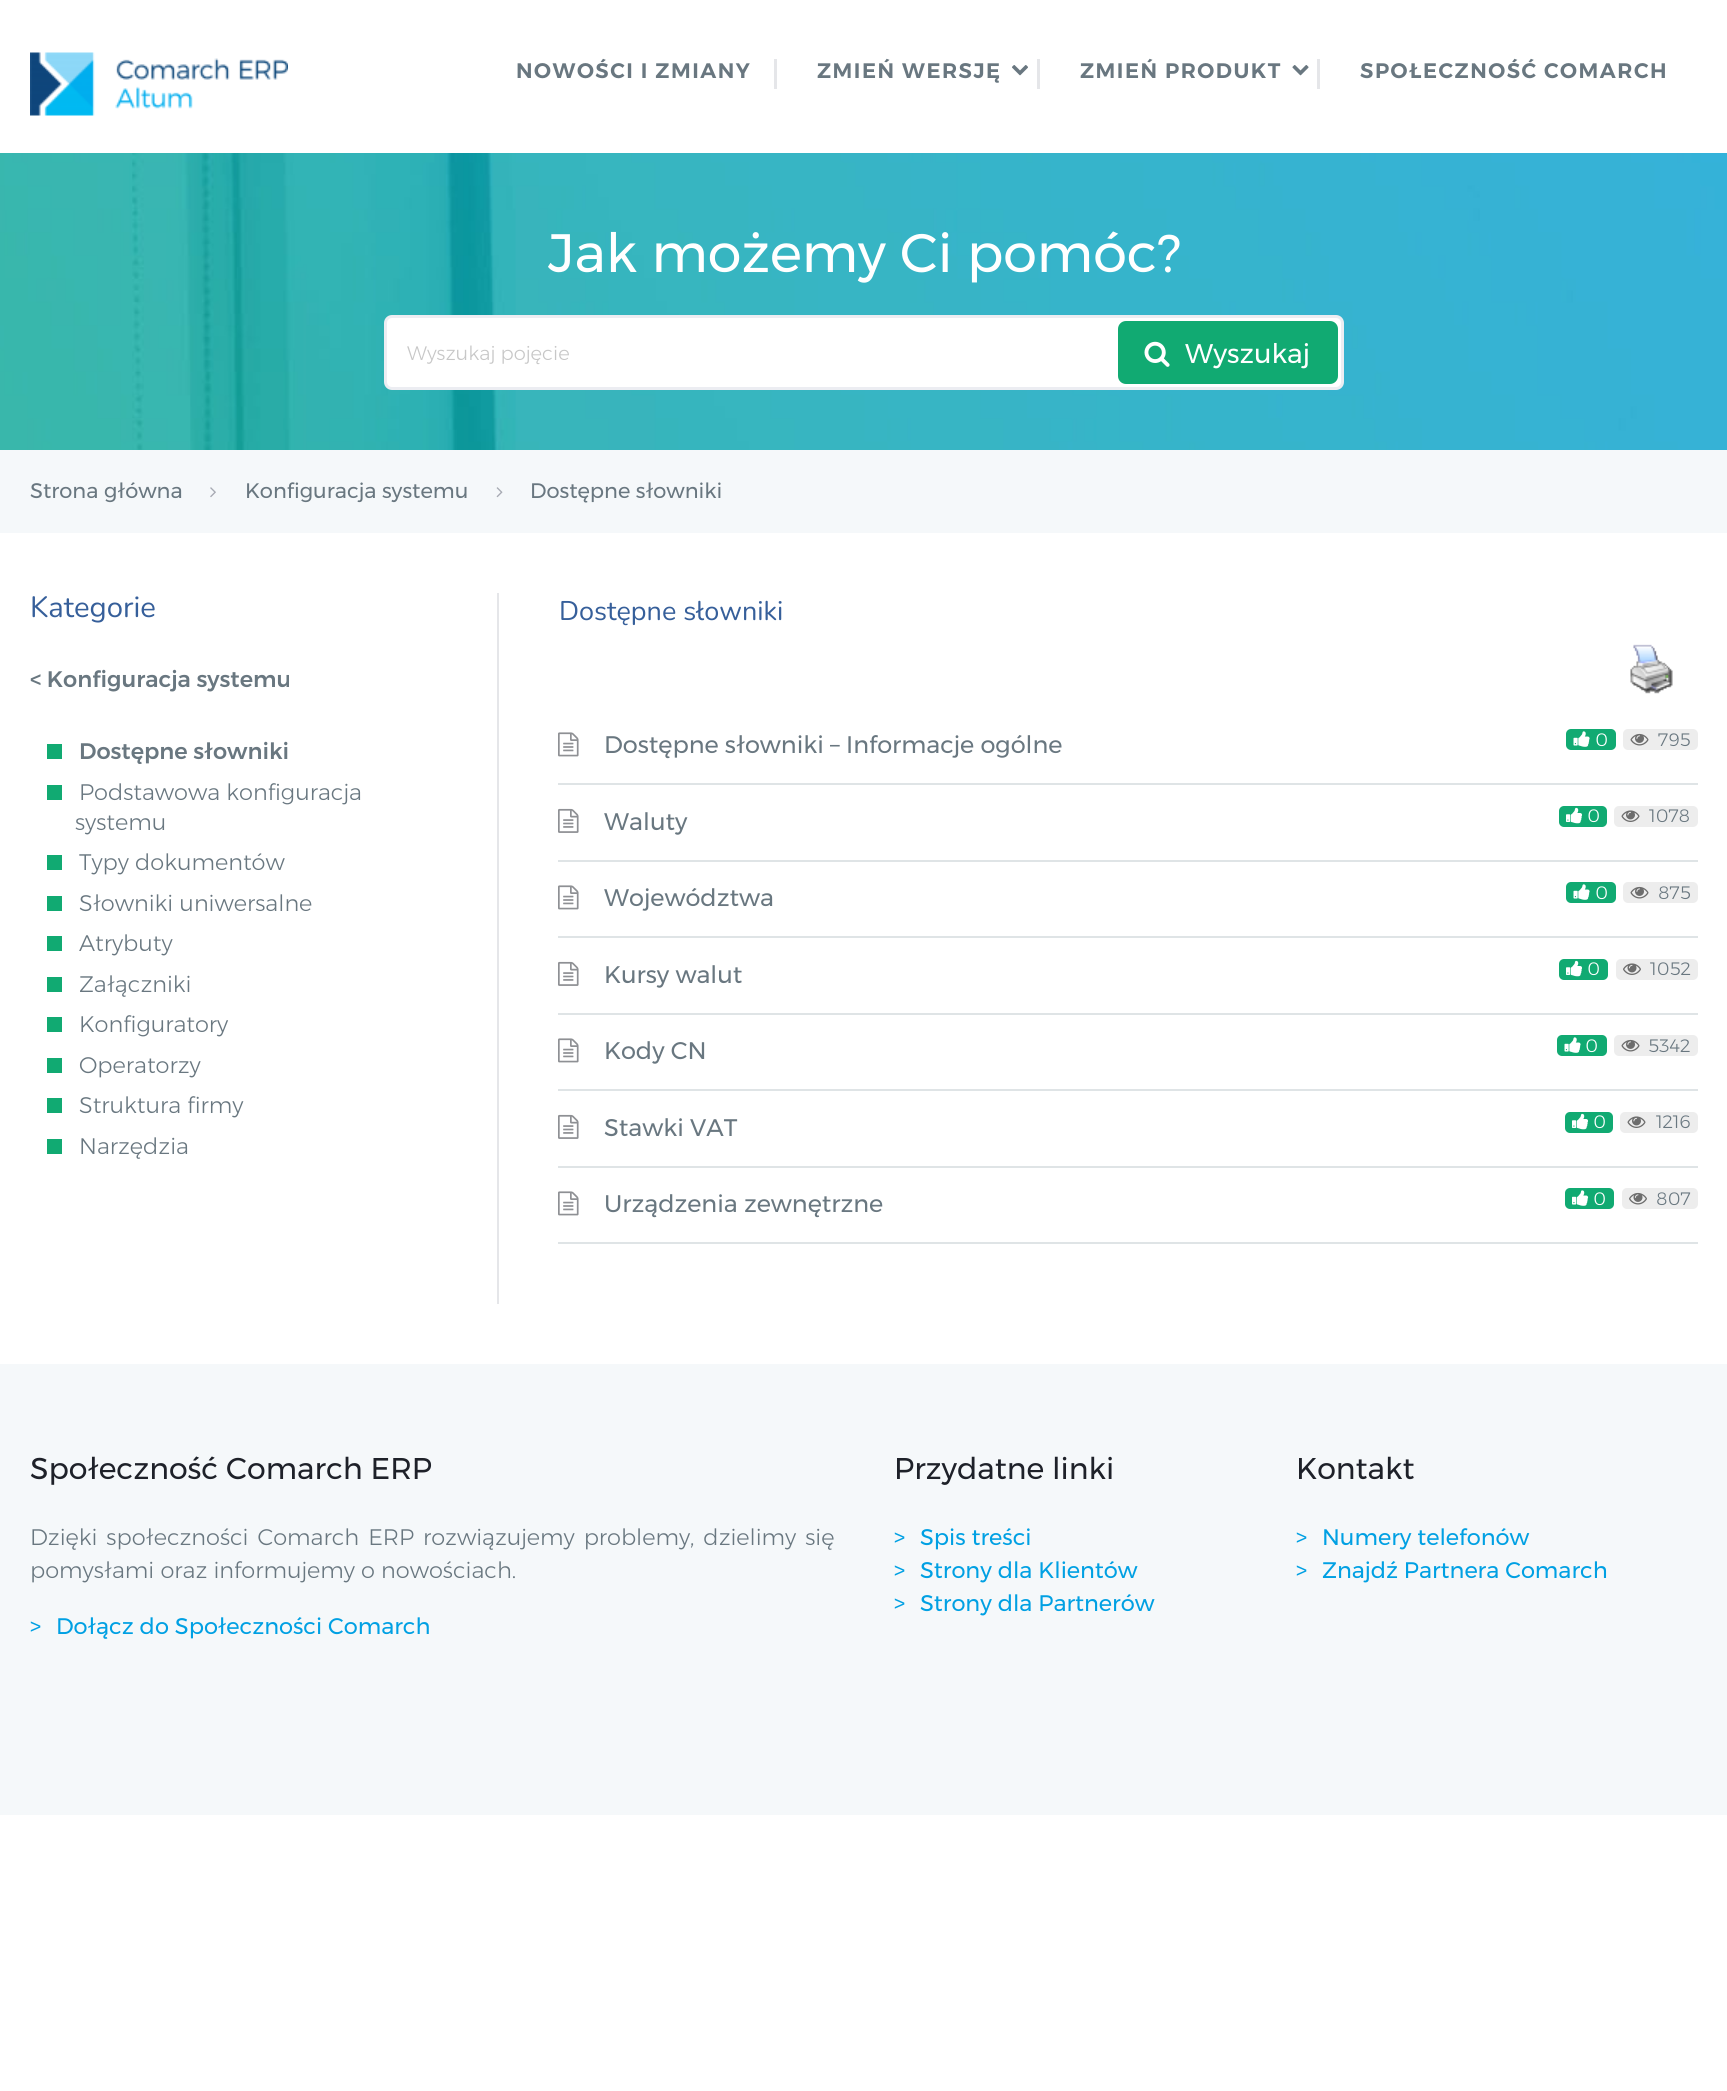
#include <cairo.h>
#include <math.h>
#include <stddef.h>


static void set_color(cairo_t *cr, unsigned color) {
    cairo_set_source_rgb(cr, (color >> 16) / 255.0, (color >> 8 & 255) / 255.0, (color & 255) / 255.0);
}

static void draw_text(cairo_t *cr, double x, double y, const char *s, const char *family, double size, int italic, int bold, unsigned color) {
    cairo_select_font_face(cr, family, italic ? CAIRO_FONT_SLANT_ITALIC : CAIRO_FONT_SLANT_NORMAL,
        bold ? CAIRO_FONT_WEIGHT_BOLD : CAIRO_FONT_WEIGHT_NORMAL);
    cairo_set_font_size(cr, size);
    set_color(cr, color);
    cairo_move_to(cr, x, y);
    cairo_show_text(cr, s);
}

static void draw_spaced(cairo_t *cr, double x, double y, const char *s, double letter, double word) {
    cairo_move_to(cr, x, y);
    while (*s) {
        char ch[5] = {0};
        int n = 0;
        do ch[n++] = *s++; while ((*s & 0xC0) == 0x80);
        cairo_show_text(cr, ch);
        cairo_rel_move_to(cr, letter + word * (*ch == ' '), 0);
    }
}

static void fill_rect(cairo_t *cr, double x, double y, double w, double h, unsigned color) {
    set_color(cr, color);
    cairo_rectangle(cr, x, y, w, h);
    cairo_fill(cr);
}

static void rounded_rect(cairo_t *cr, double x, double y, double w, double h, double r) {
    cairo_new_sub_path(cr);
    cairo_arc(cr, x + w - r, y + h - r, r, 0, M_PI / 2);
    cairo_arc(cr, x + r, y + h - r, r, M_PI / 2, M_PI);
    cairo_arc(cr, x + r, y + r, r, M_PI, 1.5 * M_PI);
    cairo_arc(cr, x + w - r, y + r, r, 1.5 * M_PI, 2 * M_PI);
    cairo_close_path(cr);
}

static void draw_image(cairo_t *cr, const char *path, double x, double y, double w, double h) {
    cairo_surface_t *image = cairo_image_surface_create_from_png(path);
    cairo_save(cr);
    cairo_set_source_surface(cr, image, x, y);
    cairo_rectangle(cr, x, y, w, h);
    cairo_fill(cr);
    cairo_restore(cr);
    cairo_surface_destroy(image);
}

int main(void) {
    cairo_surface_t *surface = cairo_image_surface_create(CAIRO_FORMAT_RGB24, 1727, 2091);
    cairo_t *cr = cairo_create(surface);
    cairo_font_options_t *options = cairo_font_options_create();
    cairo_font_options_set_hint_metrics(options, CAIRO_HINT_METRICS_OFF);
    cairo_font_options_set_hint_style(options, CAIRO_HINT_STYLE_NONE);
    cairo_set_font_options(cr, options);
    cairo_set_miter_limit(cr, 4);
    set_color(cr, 0xFFFFFF);
    cairo_paint(cr);
    draw_image(cr, "assets/img1.png", 30, 52, 258, 64);
    cairo_select_font_face(cr, "Montserrat SemiBold", CAIRO_FONT_SLANT_NORMAL, CAIRO_FONT_WEIGHT_NORMAL);
    cairo_set_font_size(cr, 21);
    set_color(cr, 0x697780);
    draw_spaced(cr, 516, 78, "NOWOŚCI I ZMIANY", 1.5, 0);
    fill_rect(cr, 774, 59, 3, 30, 0xE5E6E9);
    set_color(cr, 0x697780);
    draw_spaced(cr, 817, 78, "ZMIEŃ WERSJĘ", 1.5, 0);
    draw_image(cr, "assets/img2.png", 1012, 65, 16, 11);
    fill_rect(cr, 1037, 59, 3, 30, 0xE5E6E9);
    set_color(cr, 0x697780);
    draw_spaced(cr, 1080, 78, "ZMIEŃ PRODUKT", 1.5, 0);
    draw_image(cr, "assets/img3.png", 1292, 65, 17, 11);
    fill_rect(cr, 1317, 59, 3, 30, 0xE5E6E9);
    set_color(cr, 0x697780);
    draw_spaced(cr, 1360, 78, "SPOŁECZNOŚĆ COMARCH", 1.5, 0);
    draw_image(cr, "assets/img4.png", 0, 153, 1727, 297);
    draw_text(cr, 548, 272, "Jak możemy Ci pomóc?", "Montserrat", 54, 0, 0, 0xFFFFFF);
    rounded_rect(cr, 385.5, 316.5, 957, 72, 6.5);
    cairo_fill_preserve(cr);
    set_color(cr, 0xECEDF2);
    cairo_set_line_width(cr, 3);
    cairo_stroke(cr);
    draw_text(cr, 407, 360, "Wyszukaj pojęcie", "Montserrat Light", 19.5, 0, 0, 0xC7C7C7);
    set_color(cr, 0x11AA72);
    rounded_rect(cr, 1118, 321, 220, 63, 8);
    cairo_fill(cr);
    draw_image(cr, "assets/img5.png", 1144, 341, 26, 26);
    draw_text(cr, 1185, 363, "Wyszukaj", "Montserrat", 27, 0, 0, 0xFFFFFF);
    fill_rect(cr, 0, 450, 1727, 83, 0xF5F8FA);
    draw_text(cr, 30, 498, "Strona główna", "Montserrat", 21, 0, 0, 0x697780);
    draw_image(cr, "assets/img6.png", 210, 487, 6, 11);
    draw_text(cr, 245, 498, "Konfiguracja systemu", "Montserrat", 21, 0, 0, 0x697780);
    draw_image(cr, "assets/img7.png", 496, 487, 7, 11);
    draw_text(cr, 530, 498, "Dostępne słowniki", "Montserrat", 21, 0, 0, 0x697780);
    draw_text(cr, 30, 617, "Kategorie", "Nunito", 29.25, 0, 0, 0x365F9A);
    draw_text(cr, 30, 687, "< Konfiguracja systemu", "Montserrat Medium", 22.5, 0, 0, 0x697780);
    fill_rect(cr, 47, 744, 15, 15, 0x11AA72);
    draw_text(cr, 79, 759, "Dostępne słowniki", "Montserrat Medium", 22.5, 0, 0, 0x697780);
    fill_rect(cr, 47, 785, 15, 15, 0x11AA72);
    draw_text(cr, 79, 800, "Podstawowa konfiguracja", "Montserrat Light", 22.5, 0, 0, 0x697780);
    draw_text(cr, 75, 830, "systemu", "Montserrat Light", 22.5, 0, 0, 0x697780);
    fill_rect(cr, 47, 855, 15, 15, 0x11AA72);
    draw_text(cr, 79, 870, "Typy dokumentów", "Montserrat Light", 22.5, 0, 0, 0x697780);
    fill_rect(cr, 47, 896, 15, 15, 0x11AA72);
    draw_text(cr, 79, 911, "Słowniki uniwersalne", "Montserrat Light", 22.5, 0, 0, 0x697780);
    fill_rect(cr, 47, 936, 15, 15, 0x11AA72);
    draw_text(cr, 79, 951, "Atrybuty", "Montserrat Light", 22.5, 0, 0, 0x697780);
    fill_rect(cr, 47, 977, 15, 15, 0x11AA72);
    draw_text(cr, 79, 992, "Załączniki", "Montserrat Light", 22.5, 0, 0, 0x697780);
    fill_rect(cr, 47, 1017, 15, 15, 0x11AA72);
    draw_text(cr, 79, 1032, "Konfiguratory", "Montserrat Light", 22.5, 0, 0, 0x697780);
    fill_rect(cr, 47, 1058, 15, 15, 0x11AA72);
    draw_text(cr, 79, 1073, "Operatorzy", "Montserrat Light", 22.5, 0, 0, 0x697780);
    fill_rect(cr, 47, 1098, 15, 15, 0x11AA72);
    draw_text(cr, 79, 1113, "Struktura firmy", "Montserrat Light", 22.5, 0, 0, 0x697780);
    fill_rect(cr, 47, 1139, 15, 15, 0x11AA72);
    draw_text(cr, 79, 1154, "Narzędzia", "Montserrat Light", 22.5, 0, 0, 0x697780);
    fill_rect(cr, 497, 593, 2, 711, 0xE5E6E9);
    draw_text(cr, 559, 620, "Dostępne słowniki", "Nunito", 27, 0, 0, 0x365F9A);
    draw_image(cr, "assets/img8.png", 1630, 644, 43, 50);
    fill_rect(cr, 558, 783, 1140, 2, 0xDFE4E6);
    draw_image(cr, "assets/img9.png", 558, 732, 21, 25);
    draw_text(cr, 604, 753, "Dostępne słowniki – Informacje ogólne", "Montserrat", 24, 0, 0, 0x697780);
    set_color(cr, 0x11AA72);
    rounded_rect(cr, 1566, 729, 50, 21, 5);
    cairo_fill(cr);
    draw_image(cr, "assets/img10.png", 1573, 731, 17, 16);
    draw_text(cr, 1595, 746, "0", "Montserrat Light", 18, 0, 0, 0xFFFFFF);
    set_color(cr, 0xEDEDED);
    rounded_rect(cr, 1623, 729, 75, 21, 5);
    cairo_fill(cr);
    draw_image(cr, "assets/img11.png", 1630, 733, 19, 13);
    draw_text(cr, 1658, 746, "795", "Montserrat Light", 18, 0, 0, 0x697780);
    fill_rect(cr, 558, 860, 1140, 2, 0xDFE4E6);
    draw_image(cr, "assets/img12.png", 558, 808, 21, 25);
    draw_text(cr, 604, 830, "Waluty", "Montserrat", 24, 0, 0, 0x697780);
    set_color(cr, 0x11AA72);
    rounded_rect(cr, 1559, 806, 48, 21, 5);
    cairo_fill(cr);
    draw_image(cr, "assets/img13.png", 1566, 807, 16, 17);
    draw_text(cr, 1587, 822, "0", "Montserrat Light", 18, 0, 0, 0xFFFFFF);
    set_color(cr, 0xEDEDED);
    rounded_rect(cr, 1614, 806, 84, 21, 5);
    cairo_fill(cr);
    draw_image(cr, "assets/img14.png", 1621, 810, 19, 12);
    draw_text(cr, 1649, 822, "1078", "Montserrat Light", 18, 0, 0, 0x697780);
    fill_rect(cr, 558, 936, 1140, 2, 0xDFE4E6);
    draw_image(cr, "assets/img9.png", 558, 885, 21, 25);
    draw_text(cr, 604, 906, "Województwa", "Montserrat", 24, 0, 0, 0x697780);
    set_color(cr, 0x11AA72);
    rounded_rect(cr, 1566, 882, 50, 21, 5);
    cairo_fill(cr);
    draw_image(cr, "assets/img10.png", 1573, 884, 17, 16);
    draw_text(cr, 1595, 899, "0", "Montserrat Light", 18, 0, 0, 0xFFFFFF);
    set_color(cr, 0xEDEDED);
    rounded_rect(cr, 1623, 882, 75, 21, 5);
    cairo_fill(cr);
    draw_image(cr, "assets/img11.png", 1630, 886, 19, 13);
    draw_text(cr, 1658, 899, "875", "Montserrat Light", 18, 0, 0, 0x697780);
    fill_rect(cr, 558, 1013, 1140, 2, 0xDFE4E6);
    draw_image(cr, "assets/img12.png", 558, 961, 21, 25);
    draw_text(cr, 604, 983, "Kursy walut", "Montserrat", 24, 0, 0, 0x697780);
    set_color(cr, 0x11AA72);
    rounded_rect(cr, 1559, 959, 49, 21, 5);
    cairo_fill(cr);
    draw_image(cr, "assets/img13.png", 1566, 960, 16, 17);
    draw_text(cr, 1587, 975, "0", "Montserrat Light", 18, 0, 0, 0xFFFFFF);
    set_color(cr, 0xEDEDED);
    rounded_rect(cr, 1616, 959, 82, 21, 5);
    cairo_fill(cr);
    draw_image(cr, "assets/img15.png", 1623, 963, 18, 12);
    draw_text(cr, 1650, 975, "1052", "Montserrat Light", 18, 0, 0, 0x697780);
    fill_rect(cr, 558, 1089, 1140, 2, 0xDFE4E6);
    draw_image(cr, "assets/img9.png", 558, 1038, 21, 25);
    draw_text(cr, 604, 1059, "Kody CN", "Montserrat", 24, 0, 0, 0x697780);
    set_color(cr, 0x11AA72);
    rounded_rect(cr, 1557, 1035, 50, 21, 5);
    cairo_fill(cr);
    draw_image(cr, "assets/img10.png", 1564, 1037, 17, 16);
    draw_text(cr, 1585, 1052, "0", "Montserrat Light", 18, 0, 0, 0xFFFFFF);
    set_color(cr, 0xEDEDED);
    rounded_rect(cr, 1614, 1035, 84, 21, 5);
    cairo_fill(cr);
    draw_image(cr, "assets/img11.png", 1621, 1039, 19, 13);
    draw_text(cr, 1648, 1052, "5342", "Montserrat Light", 18, 0, 0, 0x697780);
    fill_rect(cr, 558, 1166, 1140, 2, 0xDFE4E6);
    draw_image(cr, "assets/img12.png", 558, 1114, 21, 25);
    draw_text(cr, 604, 1136, "Stawki VAT", "Montserrat", 24, 0, 0, 0x697780);
    set_color(cr, 0x11AA72);
    rounded_rect(cr, 1565, 1112, 48, 21, 5);
    cairo_fill(cr);
    draw_image(cr, "assets/img13.png", 1572, 1113, 16, 17);
    draw_text(cr, 1593, 1128, "0", "Montserrat Light", 18, 0, 0, 0xFFFFFF);
    set_color(cr, 0xEDEDED);
    rounded_rect(cr, 1620, 1112, 78, 21, 5);
    cairo_fill(cr);
    draw_image(cr, "assets/img14.png", 1627, 1116, 19, 12);
    draw_text(cr, 1656, 1128, "1216", "Montserrat Light", 18, 0, 0, 0x697780);
    fill_rect(cr, 558, 1242, 1140, 2, 0xDFE4E6);
    draw_image(cr, "assets/img9.png", 558, 1191, 21, 25);
    draw_text(cr, 604, 1212, "Urządzenia zewnętrzne", "Montserrat", 24, 0, 0, 0x697780);
    set_color(cr, 0x11AA72);
    rounded_rect(cr, 1565, 1188, 49, 21, 5);
    cairo_fill(cr);
    draw_image(cr, "assets/img16.png", 1572, 1190, 17, 16);
    draw_text(cr, 1593, 1205, "0", "Montserrat Light", 18, 0, 0, 0xFFFFFF);
    set_color(cr, 0xEDEDED);
    rounded_rect(cr, 1622, 1188, 76, 21, 5);
    cairo_fill(cr);
    draw_image(cr, "assets/img17.png", 1629, 1192, 18, 13);
    draw_text(cr, 1656, 1205, "807", "Montserrat Light", 18, 0, 0, 0x697780);
    fill_rect(cr, 0, 1364, 1727, 451, 0xF5F8FA);
    draw_text(cr, 30, 1479, "Społeczność Comarch ERP", "Montserrat", 30, 0, 0, 0x1E2129);
    cairo_select_font_face(cr, "Montserrat Light", CAIRO_FONT_SLANT_NORMAL, CAIRO_FONT_WEIGHT_NORMAL);
    cairo_set_font_size(cr, 22.5);
    set_color(cr, 0x697780);
    draw_spaced(cr, 30, 1545, "Dzięki społeczności Comarch ERP rozwiązujemy problemy, dzielimy się", 0, 2.75);
    draw_text(cr, 30, 1578, "pomysłami oraz informujemy o nowościach.", "Montserrat Light", 22.5, 0, 0, 0x697780);
    draw_text(cr, 30, 1634, ">", "Montserrat", 22.5, 0, 0, 0x00A0E3);
    draw_text(cr, 56, 1634, "Dołącz do Społeczności Comarch", "Montserrat", 22.5, 0, 0, 0x00A0E3);
    draw_text(cr, 894, 1479, "Przydatne linki", "Montserrat", 30, 0, 0, 0x1E2129);
    draw_text(cr, 894, 1545, ">", "Montserrat", 22.5, 0, 0, 0x00A0E3);
    draw_text(cr, 920, 1545, "Spis treści", "Montserrat", 22.5, 0, 0, 0x00A0E3);
    draw_text(cr, 894, 1578, ">", "Montserrat", 22.5, 0, 0, 0x00A0E3);
    draw_text(cr, 920, 1578, "Strony dla Klientów", "Montserrat", 22.5, 0, 0, 0x00A0E3);
    draw_text(cr, 894, 1611, ">", "Montserrat", 22.5, 0, 0, 0x00A0E3);
    draw_text(cr, 920, 1611, "Strony dla Partnerów", "Montserrat", 22.5, 0, 0, 0x00A0E3);
    draw_text(cr, 1296, 1479, "Kontakt", "Montserrat", 30, 0, 0, 0x1E2129);
    draw_text(cr, 1296, 1545, ">", "Montserrat", 22.5, 0, 0, 0x00A0E3);
    draw_text(cr, 1322, 1545, "Numery telefonów", "Montserrat", 22.5, 0, 0, 0x00A0E3);
    draw_text(cr, 1296, 1578, ">", "Montserrat", 22.5, 0, 0, 0x00A0E3);
    draw_text(cr, 1322, 1578, "Znajdź Partnera Comarch", "Montserrat", 22.5, 0, 0, 0x00A0E3);
    cairo_surface_write_to_png(surface, "output.png");
    cairo_font_options_destroy(options);
    cairo_destroy(cr);
    cairo_surface_destroy(surface);
    return 0;
}
